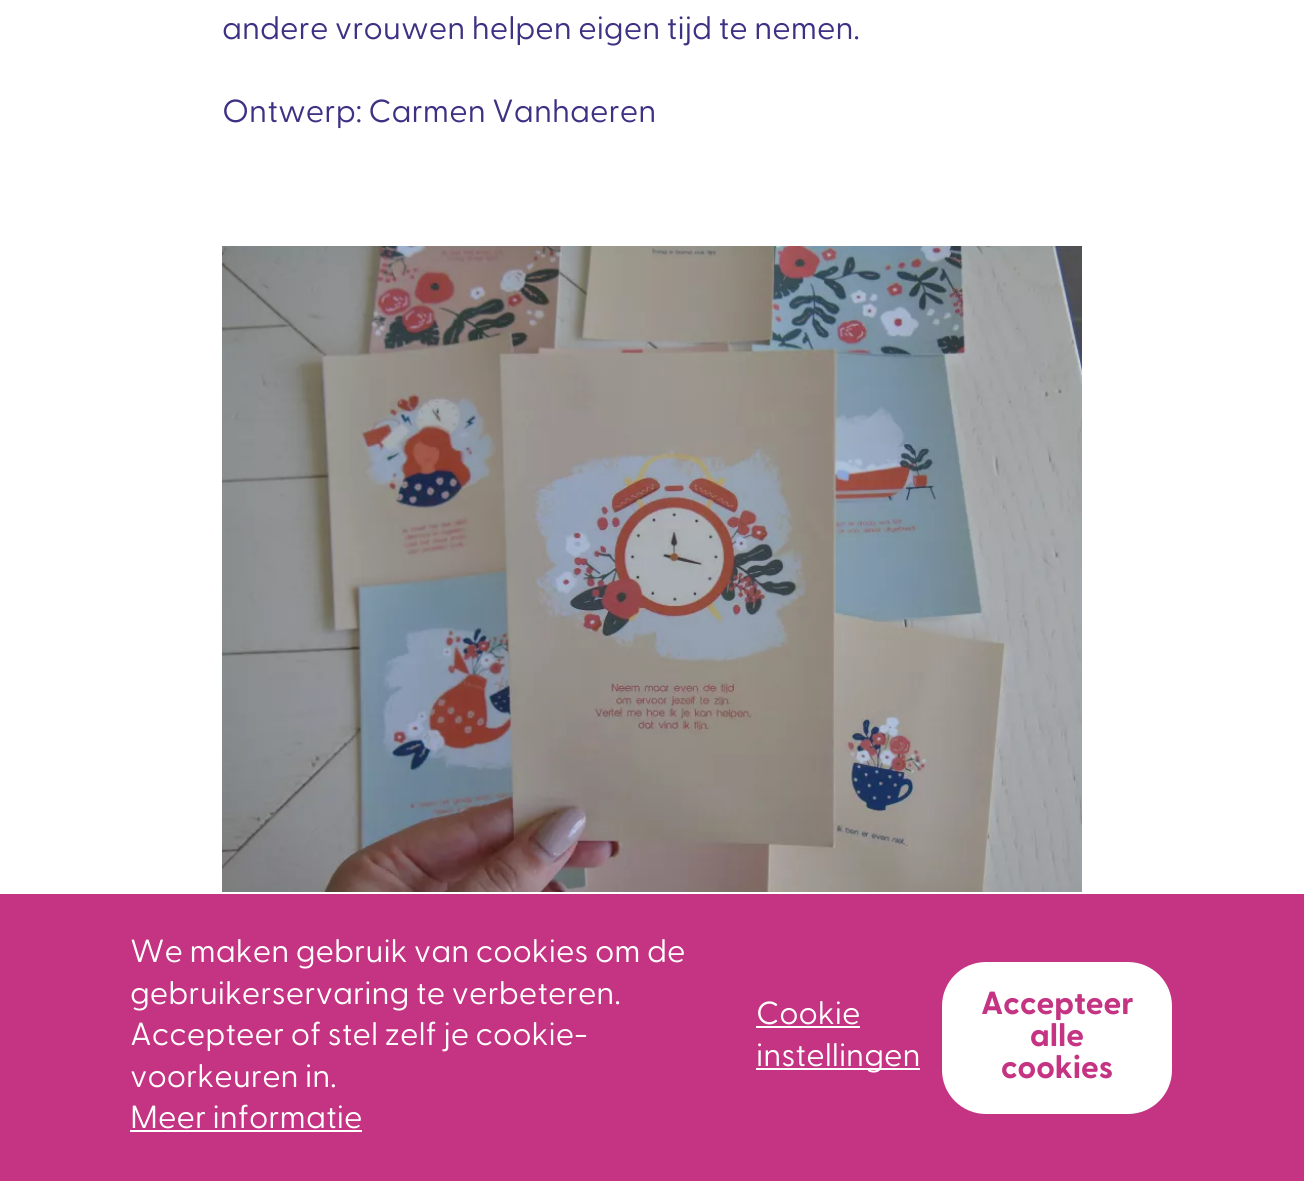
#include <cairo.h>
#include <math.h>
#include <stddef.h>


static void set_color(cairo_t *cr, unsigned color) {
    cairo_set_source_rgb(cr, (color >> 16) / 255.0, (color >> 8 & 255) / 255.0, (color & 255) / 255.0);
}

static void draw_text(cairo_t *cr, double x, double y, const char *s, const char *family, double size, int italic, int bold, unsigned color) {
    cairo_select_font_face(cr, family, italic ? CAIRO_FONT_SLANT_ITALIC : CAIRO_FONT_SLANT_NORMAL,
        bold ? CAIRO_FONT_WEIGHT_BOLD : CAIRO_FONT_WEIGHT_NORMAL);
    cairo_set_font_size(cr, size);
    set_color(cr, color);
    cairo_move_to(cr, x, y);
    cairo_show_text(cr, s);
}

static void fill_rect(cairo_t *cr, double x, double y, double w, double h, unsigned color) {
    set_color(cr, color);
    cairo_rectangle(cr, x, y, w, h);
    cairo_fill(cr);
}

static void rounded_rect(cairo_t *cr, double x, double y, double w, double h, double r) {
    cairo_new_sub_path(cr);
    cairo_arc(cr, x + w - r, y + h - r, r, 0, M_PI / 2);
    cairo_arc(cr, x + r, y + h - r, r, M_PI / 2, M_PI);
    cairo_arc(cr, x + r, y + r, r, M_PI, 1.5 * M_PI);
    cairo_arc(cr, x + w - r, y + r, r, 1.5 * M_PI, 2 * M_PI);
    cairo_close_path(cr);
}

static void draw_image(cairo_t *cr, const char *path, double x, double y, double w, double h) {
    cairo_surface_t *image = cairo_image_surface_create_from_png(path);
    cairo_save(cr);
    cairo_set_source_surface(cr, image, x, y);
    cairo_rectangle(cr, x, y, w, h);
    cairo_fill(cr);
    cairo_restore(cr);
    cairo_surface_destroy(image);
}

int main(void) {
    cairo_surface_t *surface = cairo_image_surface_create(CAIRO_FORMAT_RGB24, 1304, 1181);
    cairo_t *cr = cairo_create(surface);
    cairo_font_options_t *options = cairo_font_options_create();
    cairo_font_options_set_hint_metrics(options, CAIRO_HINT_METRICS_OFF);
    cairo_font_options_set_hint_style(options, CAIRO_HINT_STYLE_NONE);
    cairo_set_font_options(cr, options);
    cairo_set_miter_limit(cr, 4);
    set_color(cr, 0xFFFFFF);
    cairo_paint(cr);
    draw_text(cr, 222, 39, "andere vrouwen helpen eigen tijd te nemen.", "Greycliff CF", 32, 0, 0, 0x3D3184);
    draw_text(cr, 222, 122, "Ontwerp: Carmen Vanhaeren", "Greycliff CF", 32, 0, 0, 0x3D3184);
    draw_image(cr, "assets/img1.png", 222, 246, 860, 646);
    fill_rect(cr, 0, 894, 1304, 287, 0xC53383);
    draw_text(cr, 130, 962, "We maken gebruik van cookies om de", "Greycliff CF", 32, 0, 0, 0xFFFFFF);
    draw_text(cr, 130, 1004, "gebruikerservaring te verbeteren.", "Greycliff CF", 32, 0, 0, 0xFFFFFF);
    draw_text(cr, 130, 1045, "Accepteer of stel zelf je cookie-", "Greycliff CF", 32, 0, 0, 0xFFFFFF);
    draw_text(cr, 130, 1087, "voorkeuren in.", "Greycliff CF", 32, 0, 0, 0xFFFFFF);
    draw_text(cr, 130, 1128, "Meer informatie", "Greycliff CF", 32, 0, 0, 0xFFFFFF);
    fill_rect(cr, 130, 1130, 232, 2, 0xFFFFFF);
    draw_text(cr, 756, 1024, "Cookie", "Greycliff CF", 32, 0, 0, 0xFFFFFF);
    fill_rect(cr, 756, 1026, 104, 2, 0xFFFFFF);
    fill_rect(cr, 756, 1068, 164, 2, 0xFFFFFF);
    draw_text(cr, 756, 1066, "instellingen", "Greycliff CF", 32, 0, 0, 0xFFFFFF);
    rounded_rect(cr, 941, 961, 232, 154, 45);
    cairo_fill_preserve(cr);
    set_color(cr, 0xC53383);
    cairo_stroke(cr);
    draw_text(cr, 981, 1014, "Accepteer", "Greycliff CF", 32, 0, 1, 0xC53383);
    draw_text(cr, 1030, 1046, "alle", "Greycliff CF", 32, 0, 1, 0xC53383);
    draw_text(cr, 1001, 1078, "cookies", "Greycliff CF", 32, 0, 1, 0xC53383);
    cairo_surface_write_to_png(surface, "output.png");
    cairo_font_options_destroy(options);
    cairo_destroy(cr);
    cairo_surface_destroy(surface);
    return 0;
}
